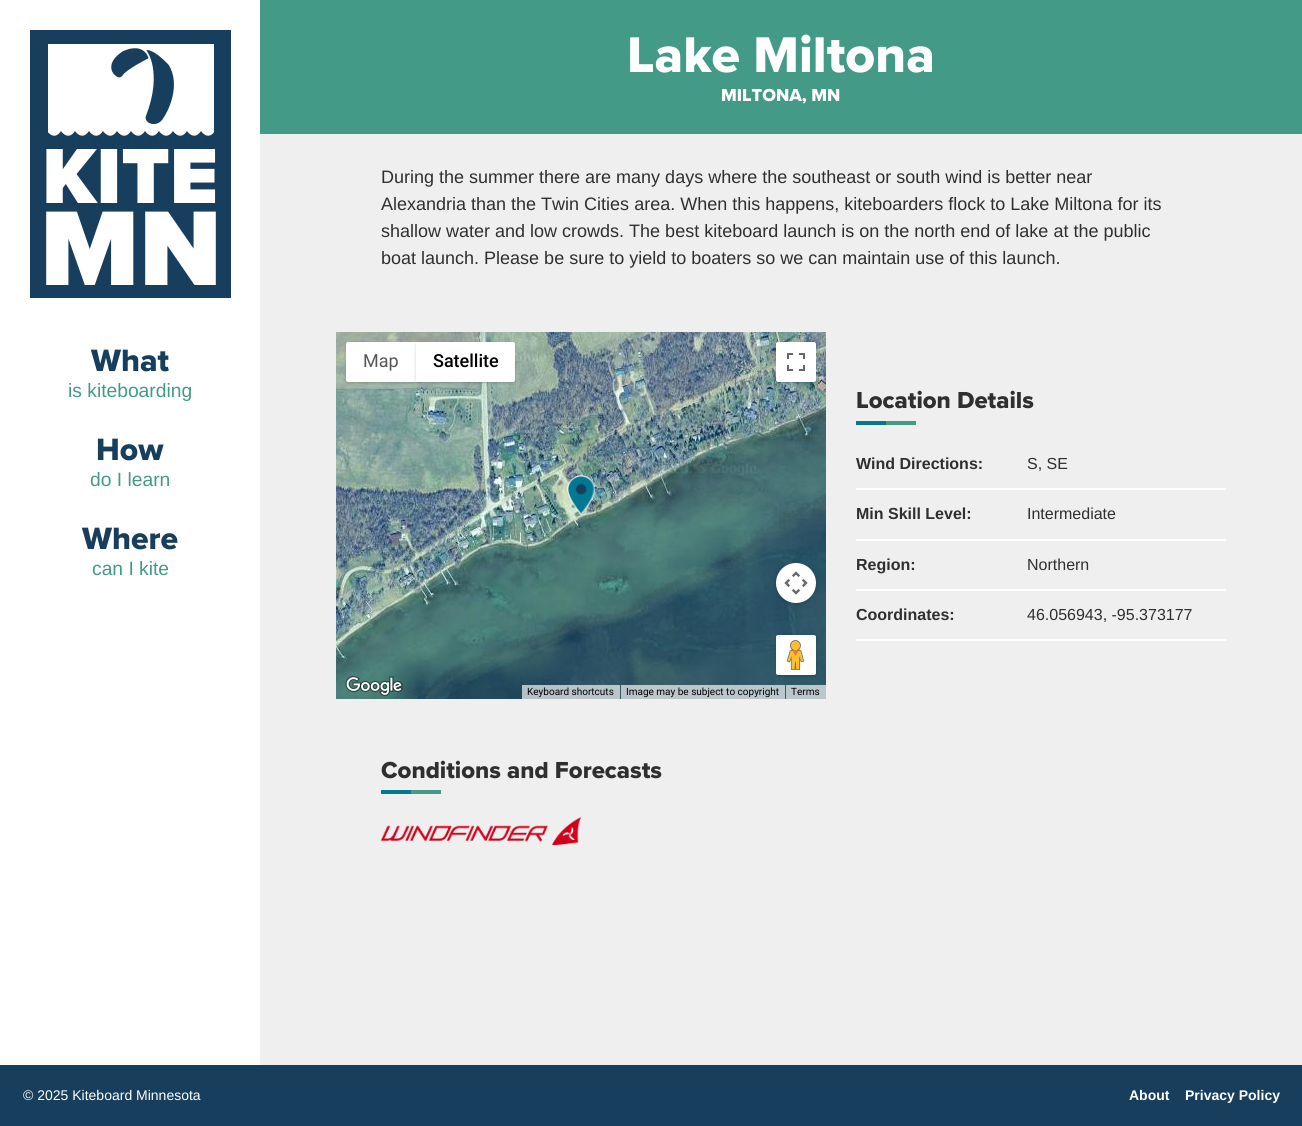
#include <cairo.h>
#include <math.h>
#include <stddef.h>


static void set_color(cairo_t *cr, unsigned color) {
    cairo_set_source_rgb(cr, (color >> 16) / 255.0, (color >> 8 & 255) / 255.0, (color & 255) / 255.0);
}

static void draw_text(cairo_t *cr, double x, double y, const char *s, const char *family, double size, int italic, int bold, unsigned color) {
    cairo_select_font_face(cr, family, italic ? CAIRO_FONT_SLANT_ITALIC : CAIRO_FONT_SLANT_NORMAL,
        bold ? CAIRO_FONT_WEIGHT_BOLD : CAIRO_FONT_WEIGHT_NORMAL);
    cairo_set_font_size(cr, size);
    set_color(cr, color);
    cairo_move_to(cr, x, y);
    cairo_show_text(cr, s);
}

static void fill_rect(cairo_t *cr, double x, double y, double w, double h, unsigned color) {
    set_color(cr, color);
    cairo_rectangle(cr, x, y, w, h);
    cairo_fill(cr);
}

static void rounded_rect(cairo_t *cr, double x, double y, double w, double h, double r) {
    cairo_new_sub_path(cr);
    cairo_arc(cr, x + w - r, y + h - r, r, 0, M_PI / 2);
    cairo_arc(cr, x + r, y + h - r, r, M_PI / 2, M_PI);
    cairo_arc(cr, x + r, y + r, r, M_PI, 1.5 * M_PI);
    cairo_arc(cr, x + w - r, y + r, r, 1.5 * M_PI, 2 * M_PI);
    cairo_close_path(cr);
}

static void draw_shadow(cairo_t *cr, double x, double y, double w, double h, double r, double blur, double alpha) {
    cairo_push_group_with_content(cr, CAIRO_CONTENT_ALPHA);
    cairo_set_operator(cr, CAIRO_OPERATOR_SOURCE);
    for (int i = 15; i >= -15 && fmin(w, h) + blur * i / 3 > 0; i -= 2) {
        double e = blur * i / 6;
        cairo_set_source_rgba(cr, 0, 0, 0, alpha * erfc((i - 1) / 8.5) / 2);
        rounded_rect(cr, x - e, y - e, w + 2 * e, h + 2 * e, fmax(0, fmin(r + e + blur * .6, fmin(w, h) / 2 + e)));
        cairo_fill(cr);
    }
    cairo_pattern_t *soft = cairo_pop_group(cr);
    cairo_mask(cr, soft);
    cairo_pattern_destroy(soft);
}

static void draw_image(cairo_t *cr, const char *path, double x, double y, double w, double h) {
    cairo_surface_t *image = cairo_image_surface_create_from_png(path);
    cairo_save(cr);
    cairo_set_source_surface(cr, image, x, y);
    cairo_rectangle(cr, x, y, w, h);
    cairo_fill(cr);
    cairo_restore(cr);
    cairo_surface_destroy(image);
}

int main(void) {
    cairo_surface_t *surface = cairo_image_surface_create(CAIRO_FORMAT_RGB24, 1302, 1126);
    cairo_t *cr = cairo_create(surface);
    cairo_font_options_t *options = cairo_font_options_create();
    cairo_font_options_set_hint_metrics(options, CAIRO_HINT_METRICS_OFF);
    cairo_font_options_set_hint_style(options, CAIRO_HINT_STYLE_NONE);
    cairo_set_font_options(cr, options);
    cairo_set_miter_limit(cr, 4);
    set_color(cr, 0xFFFFFF);
    cairo_paint(cr);
    draw_image(cr, "assets/img1.png", 30, 30, 201, 268);
    draw_text(cr, 91, 371, "What", "Proxima Nova ExtraBold", 32, 0, 0, 0x173E5D);
    draw_text(cr, 68, 397, "is kiteboarding", "Liberation Sans", 19.25, 0, 0, 0x439A86);
    draw_text(cr, 96, 460, "How", "Proxima Nova ExtraBold", 32, 0, 0, 0x173E5D);
    draw_text(cr, 90, 486, "do I learn", "Liberation Sans", 19.25, 0, 0, 0x439A86);
    draw_text(cr, 82, 549, "Where", "Proxima Nova ExtraBold", 32, 0, 0, 0x173E5D);
    draw_text(cr, 92, 575, "can I kite", "Liberation Sans", 19.25, 0, 0, 0x439A86);
    fill_rect(cr, 260, 134, 1042, 931, 0xEFEFEF);
    fill_rect(cr, 260, 0, 1042, 134, 0x439A86);
    draw_text(cr, 627, 72, "Lake Miltona", "Proxima Nova ExtraBold", 52, 0, 0, 0xFFFFFF);
    draw_text(cr, 721, 101, "MILTONA, MN", "Proxima Nova ExtraBold", 18, 0, 0, 0xFFFFFF);
    draw_text(cr, 381, 183, "During the summer there are many days where the southeast or south wind is better near", "Liberation Sans", 18, 0, 0, 0x2F2F2F);
    draw_text(cr, 381, 210, "Alexandria than the Twin Cities area. When this happens, kiteboarders flock to Lake Miltona for its", "Liberation Sans", 18, 0, 0, 0x2F2F2F);
    draw_text(cr, 381, 237, "shallow water and low crowds. The best kiteboard launch is on the north end of lake at the public", "Liberation Sans", 18, 0, 0, 0x2F2F2F);
    draw_text(cr, 381, 264, "boat launch. Please be sure to yield to boaters so we can maintain use of this launch.", "Liberation Sans", 18, 0, 0, 0x2F2F2F);
    draw_image(cr, "assets/img2.png", 336, 332, 29, 113);
    draw_image(cr, "assets/img3.png", 365, 332, 256, 113);
    draw_image(cr, "assets/img4.png", 621, 332, 205, 113);
    draw_image(cr, "assets/img5.png", 336, 445, 29, 254);
    draw_image(cr, "assets/img6.png", 365, 445, 256, 254);
    draw_image(cr, "assets/img7.png", 621, 445, 205, 254);
    draw_image(cr, "assets/img8.png", 567, 475, 28, 40);
    set_color(cr, 0x000000);
    draw_shadow(cr, 347, 344, 68, 38, 1, 2, 0.3);
    set_color(cr, 0xFFFFFF);
    cairo_new_path(cr);
    cairo_move_to(cr, 348, 342);
    cairo_line_to(cr, 416, 342);
    cairo_line_to(cr, 416, 382);
    cairo_line_to(cr, 348, 382);
    cairo_curve_to(cr, 347, 382, 346, 381, 346, 380);
    cairo_line_to(cr, 346, 344);
    cairo_curve_to(cr, 346, 343, 347, 342, 348, 342);
    cairo_close_path(cr);
    cairo_fill(cr);
    draw_text(cr, 363, 367, "Map", "Roboto", 18, 0, 0, 0x565656);
    set_color(cr, 0x000000);
    draw_shadow(cr, 417, 344, 97, 38, 1, 2, 0.3);
    set_color(cr, 0xFFFFFF);
    cairo_new_path(cr);
    cairo_move_to(cr, 416, 342);
    cairo_line_to(cr, 513, 342);
    cairo_curve_to(cr, 514, 342, 515, 343, 515, 344);
    cairo_line_to(cr, 515, 380);
    cairo_curve_to(cr, 515, 381, 514, 382, 513, 382);
    cairo_line_to(cr, 416, 382);
    cairo_close_path(cr);
    cairo_fill(cr);
    draw_text(cr, 433, 367, "Satellite", "Roboto Medium", 18, 0, 0, 0x000000);
    set_color(cr, 0x000000);
    draw_shadow(cr, 777, 344, 38, 38, 1, 2, 0.3);
    set_color(cr, 0xFFFFFF);
    rounded_rect(cr, 776, 342, 40, 40, 2);
    cairo_fill(cr);
    draw_image(cr, "assets/img9.png", 787, 353, 18, 18);
    set_color(cr, 0x000000);
    draw_shadow(cr, 777, 565, 38, 38, 19, 2, 0.3);
    set_color(cr, 0xFFFFFF);
    cairo_arc(cr, 796, 583, 20, 0, 2 * M_PI);
    cairo_fill(cr);
    draw_image(cr, "assets/img10.png", 784, 571, 24, 24);
    set_color(cr, 0x000000);
    draw_shadow(cr, 777, 637, 38, 38, 1, 2, 0.3);
    set_color(cr, 0xFFFFFF);
    rounded_rect(cr, 776, 635, 40, 40, 2);
    cairo_fill(cr);
    draw_image(cr, "assets/img11.png", 787, 640, 17, 30);
    draw_image(cr, "assets/img12.png", 345, 676, 58, 21);
    cairo_set_source_rgba(cr, 0.961, 0.961, 0.961, 0.7);
    cairo_rectangle(cr, 522, 685, 98, 14);
    cairo_fill(cr);
    draw_text(cr, 527, 695, "Keyboard shortcuts", "Roboto", 10, 0, 0, 0x000000);
    cairo_set_source_rgba(cr, 0.961, 0.961, 0.961, 0.7);
    cairo_rectangle(cr, 621, 685, 164, 14);
    cairo_fill(cr);
    draw_text(cr, 626, 695, "Image may be subject to copyright", "Roboto", 10, 0, 0, 0x000000);
    cairo_set_source_rgba(cr, 0.961, 0.961, 0.961, 0.7);
    cairo_rectangle(cr, 786, 685, 40, 14);
    cairo_fill(cr);
    draw_text(cr, 791, 695, "Terms", "Roboto", 10, 0, 0, 0x000000);
    draw_text(cr, 856, 408, "Location Details", "Proxima Nova ExtraBold", 24, 0, 0, 0x2F2F2F);
    fill_rect(cr, 856, 421, 30, 4, 0x007991);
    fill_rect(cr, 886, 421, 30, 4, 0x439A86);
    fill_rect(cr, 856, 488, 370, 2, 0xFFFFFF);
    draw_text(cr, 856, 469, "Wind Directions:", "Liberation Sans", 16, 0, 1, 0x2F2F2F);
    draw_text(cr, 1027, 469, "S, SE", "Liberation Sans", 16, 0, 0, 0x2F2F2F);
    fill_rect(cr, 856, 539, 370, 2, 0xFFFFFF);
    draw_text(cr, 856, 519, "Min Skill Level:", "Liberation Sans", 16, 0, 1, 0x2F2F2F);
    draw_text(cr, 1027, 519, "Intermediate", "Liberation Sans", 16, 0, 0, 0x2F2F2F);
    fill_rect(cr, 856, 589, 370, 2, 0xFFFFFF);
    draw_text(cr, 856, 570, "Region:", "Liberation Sans", 16, 0, 1, 0x2F2F2F);
    draw_text(cr, 1027, 570, "Northern", "Liberation Sans", 16, 0, 0, 0x2F2F2F);
    fill_rect(cr, 856, 639, 370, 2, 0xFFFFFF);
    draw_text(cr, 856, 620, "Coordinates:", "Liberation Sans", 16, 0, 1, 0x2F2F2F);
    draw_text(cr, 1027, 620, "46.056943, -95.373177", "Liberation Sans", 16, 0, 0, 0x2F2F2F);
    draw_text(cr, 381, 778, "Conditions and Forecasts", "Proxima Nova ExtraBold", 24, 0, 0, 0x2F2F2F);
    fill_rect(cr, 381, 790, 30, 4, 0x007991);
    fill_rect(cr, 411, 790, 30, 4, 0x439A86);
    draw_image(cr, "assets/img13.png", 381, 817, 200, 28);
    fill_rect(cr, 0, 1065, 1302, 61, 0x173E5D);
    draw_text(cr, 23, 1100, "© 2025 Kiteboard Minnesota", "Liberation Sans", 14, 0, 0, 0xFFFFFF);
    draw_text(cr, 1129, 1100, "About", "Liberation Sans", 14, 0, 1, 0xFFFFFF);
    draw_text(cr, 1185, 1100, "Privacy Policy", "Liberation Sans", 14, 0, 1, 0xFFFFFF);
    cairo_surface_write_to_png(surface, "output.png");
    cairo_font_options_destroy(options);
    cairo_destroy(cr);
    cairo_surface_destroy(surface);
    return 0;
}
